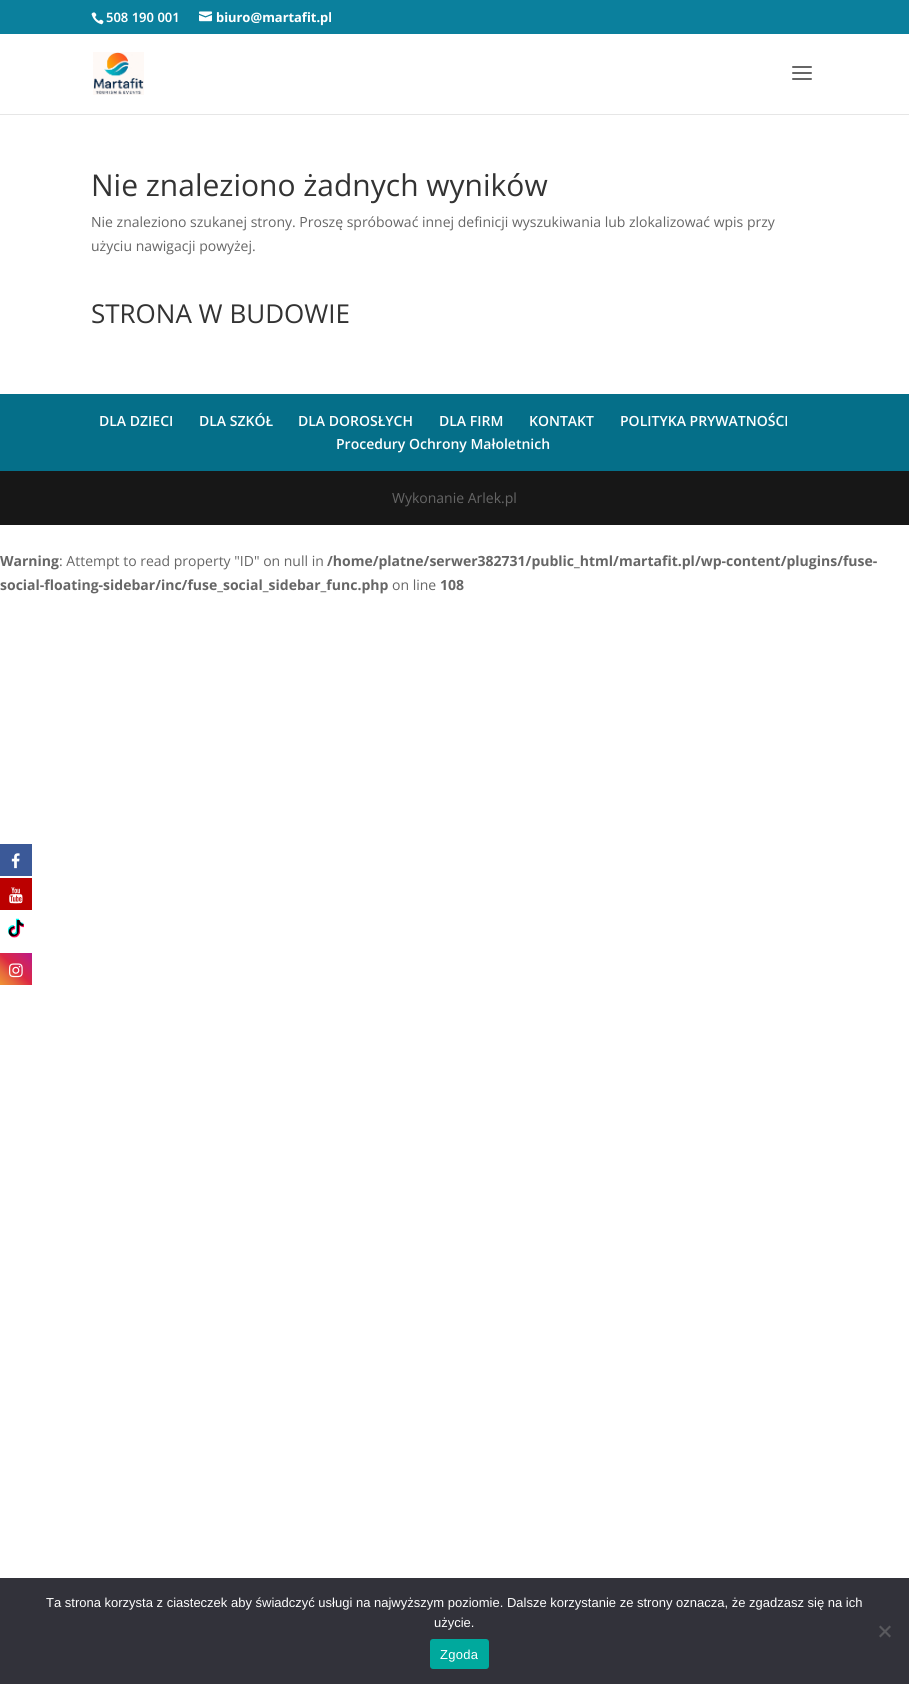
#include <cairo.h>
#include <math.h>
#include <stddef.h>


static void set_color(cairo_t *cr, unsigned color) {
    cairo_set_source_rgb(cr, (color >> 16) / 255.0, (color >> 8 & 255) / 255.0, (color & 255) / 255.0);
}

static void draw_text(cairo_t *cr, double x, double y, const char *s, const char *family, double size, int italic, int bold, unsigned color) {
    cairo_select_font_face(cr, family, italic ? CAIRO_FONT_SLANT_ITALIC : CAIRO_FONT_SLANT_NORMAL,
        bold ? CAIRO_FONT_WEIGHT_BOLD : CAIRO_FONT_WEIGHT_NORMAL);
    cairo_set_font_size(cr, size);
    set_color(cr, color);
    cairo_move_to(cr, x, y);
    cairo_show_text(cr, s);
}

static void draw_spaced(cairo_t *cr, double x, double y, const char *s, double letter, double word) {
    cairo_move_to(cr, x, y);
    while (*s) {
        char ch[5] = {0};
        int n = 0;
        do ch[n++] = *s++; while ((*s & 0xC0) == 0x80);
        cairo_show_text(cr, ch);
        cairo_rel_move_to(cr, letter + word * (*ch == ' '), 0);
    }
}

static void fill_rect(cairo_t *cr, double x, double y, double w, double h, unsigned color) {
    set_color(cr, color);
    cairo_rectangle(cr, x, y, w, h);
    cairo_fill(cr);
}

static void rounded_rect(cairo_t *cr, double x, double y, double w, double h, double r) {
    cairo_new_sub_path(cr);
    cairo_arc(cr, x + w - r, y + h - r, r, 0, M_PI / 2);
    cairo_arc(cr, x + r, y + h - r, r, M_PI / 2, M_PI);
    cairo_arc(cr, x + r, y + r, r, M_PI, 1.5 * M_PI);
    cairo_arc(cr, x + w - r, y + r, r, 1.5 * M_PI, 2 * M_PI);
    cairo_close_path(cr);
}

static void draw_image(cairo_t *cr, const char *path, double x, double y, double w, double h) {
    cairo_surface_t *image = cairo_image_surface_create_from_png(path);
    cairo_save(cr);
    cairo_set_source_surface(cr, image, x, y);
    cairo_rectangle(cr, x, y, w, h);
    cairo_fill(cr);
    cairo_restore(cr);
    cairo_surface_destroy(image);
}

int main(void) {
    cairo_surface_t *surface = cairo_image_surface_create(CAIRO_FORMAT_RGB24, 909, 1684);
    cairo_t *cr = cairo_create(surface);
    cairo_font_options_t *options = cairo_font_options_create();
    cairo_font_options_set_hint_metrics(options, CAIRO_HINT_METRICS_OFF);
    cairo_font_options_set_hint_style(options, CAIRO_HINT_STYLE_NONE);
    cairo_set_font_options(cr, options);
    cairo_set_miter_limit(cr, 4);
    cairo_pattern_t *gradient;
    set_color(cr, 0xFFFFFF);
    cairo_paint(cr);
    fill_rect(cr, 0, 0, 909, 34, 0x0B809D);
    draw_image(cr, "assets/img1.png", 91, 12, 13, 13);
    draw_text(cr, 106, 22, "508 190 001", "Noto Sans SemiBold", 13, 0, 0, 0xFFFFFF);
    draw_image(cr, "assets/img2.png", 199, 11, 13, 11);
    draw_text(cr, 216, 22, "biuro@martafit.pl", "Noto Sans", 13, 0, 1, 0xFFFFFF);
    fill_rect(cr, 0, 114, 909, 1, 0xE6E6E6);
    draw_image(cr, "assets/img3.png", 93, 52, 51, 43);
    draw_image(cr, "assets/img4.png", 792, 66, 20, 14);
    draw_text(cr, 91, 196, "Nie znaleziono żadnych wyników", "Open Sans", 30, 0, 0, 0x333333);
    draw_text(cr, 91, 227, "Nie znaleziono szukanej strony. Proszę spróbować innej definicji wyszukiwania lub zlokalizować wpis przy", "Open Sans", 14, 0, 0, 0x666666);
    draw_text(cr, 91, 251, "użyciu nawigacji powyżej.", "Open Sans", 14, 0, 0, 0x666666);
    draw_text(cr, 91, 323, "STRONA W BUDOWIE", "Open Sans", 26, 0, 0, 0x333333);
    fill_rect(cr, 0, 394, 909, 77, 0x056F89);
    draw_text(cr, 99, 426, "DLA DZIECI", "Open Sans SemiBold", 14, 0, 0, 0xFFFFFF);
    draw_text(cr, 199, 426, "DLA SZKÓŁ", "Open Sans SemiBold", 14, 0, 0, 0xFFFFFF);
    draw_text(cr, 298, 426, "DLA DOROSŁYCH", "Open Sans SemiBold", 14, 0, 0, 0xFFFFFF);
    draw_text(cr, 439, 426, "DLA FIRM", "Open Sans SemiBold", 14, 0, 0, 0xFFFFFF);
    draw_text(cr, 529, 426, "KONTAKT", "Open Sans SemiBold", 14, 0, 0, 0xFFFFFF);
    draw_text(cr, 620, 426, "POLITYKA PRYWATNOŚCI", "Open Sans SemiBold", 14, 0, 0, 0xFFFFFF);
    draw_text(cr, 336, 449, "Procedury Ochrony Małoletnich", "Open Sans SemiBold", 14, 0, 0, 0xFFFFFF);
    fill_rect(cr, 0, 471, 909, 54, 0x171717);
    draw_text(cr, 392, 503, "Wykonanie Arlek.pl", "Open Sans", 14, 0, 0, 0x666666);
    draw_text(cr, 0, 566, "Warning", "Open Sans", 14, 0, 1, 0x666666);
    draw_text(cr, 59, 566, ": Attempt to read property \"ID\" on null in", "Open Sans", 14, 0, 0, 0x666666);
    draw_text(cr, 327, 566, "/home/platne/serwer382731/public_html/martafit.pl/wp-content/plugins/fuse-", "Open Sans", 14, 0, 1, 0x666666);
    draw_text(cr, 0, 590, "social-floating-sidebar/inc/fuse_social_sidebar_func.php", "Open Sans", 14, 0, 1, 0x666666);
    draw_text(cr, 392, 590, "on line", "Open Sans", 14, 0, 0, 0x666666);
    draw_text(cr, 440, 590, "108", "Open Sans", 14, 0, 1, 0x666666);
    fill_rect(cr, 0, 844, 32, 32, 0x3B5998);
    draw_image(cr, "assets/img5.png", 11, 853, 9, 16);
    fill_rect(cr, 0, 878, 32, 32, 0xBB0000);
    draw_image(cr, "assets/img6.png", 9, 887, 14, 17);
    draw_image(cr, "assets/img7.png", 8, 918, 16, 20);
    gradient = cairo_pattern_create_linear(0, 985, 32, 953);
    cairo_pattern_add_color_stop_rgba(gradient, 0, 0.941, 0.58, 0.2, 1);
    cairo_pattern_add_color_stop_rgba(gradient, 0.25, 0.902, 0.408, 0.235, 1);
    cairo_pattern_add_color_stop_rgba(gradient, 0.5, 0.863, 0.153, 0.263, 1);
    cairo_pattern_add_color_stop_rgba(gradient, 0.75, 0.8, 0.137, 0.4, 1);
    cairo_pattern_add_color_stop_rgba(gradient, 1, 0.737, 0.094, 0.533, 1);
    cairo_set_source(cr, gradient);
    cairo_pattern_destroy(gradient);
    cairo_rectangle(cr, 0, 953, 32, 32);
    cairo_fill(cr);
    draw_image(cr, "assets/img8.png", 9, 963, 14, 15);
    fill_rect(cr, 0, 1578, 909, 106, 0x32323A);
    draw_text(cr, 46, 1607, "Ta strona korzysta z ciasteczek aby świadczyć usługi na najwyższym poziomie. Dalsze korzystanie ze strony oznacza, że zgadzasz się na ich", "Liberation Sans", 13, 0, 0, 0xFFFFFF);
    draw_text(cr, 434, 1627, "użycie.", "Liberation Sans", 13, 0, 0, 0xFFFFFF);
    set_color(cr, 0x59595D);
    cairo_new_path(cr);
    cairo_move_to(cr, 889.5, 1625.5);
    cairo_line_to(cr, 891, 1627);
    cairo_line_to(cr, 880.5, 1637.5);
    cairo_line_to(cr, 879, 1636);
    cairo_close_path(cr);
    cairo_fill(cr);
    cairo_new_path(cr);
    cairo_move_to(cr, 879, 1627);
    cairo_line_to(cr, 880.5, 1625.5);
    cairo_line_to(cr, 891, 1636);
    cairo_line_to(cr, 889.5, 1637.5);
    cairo_close_path(cr);
    cairo_fill(cr);
    set_color(cr, 0x00A99D);
    rounded_rect(cr, 430, 1639, 59, 30, 3);
    cairo_fill(cr);
    set_color(cr, 0xFFFFFF);
    draw_spaced(cr, 440, 1659, "Zgoda", 0.25, 0);
    cairo_surface_write_to_png(surface, "output.png");
    cairo_font_options_destroy(options);
    cairo_destroy(cr);
    cairo_surface_destroy(surface);
    return 0;
}
